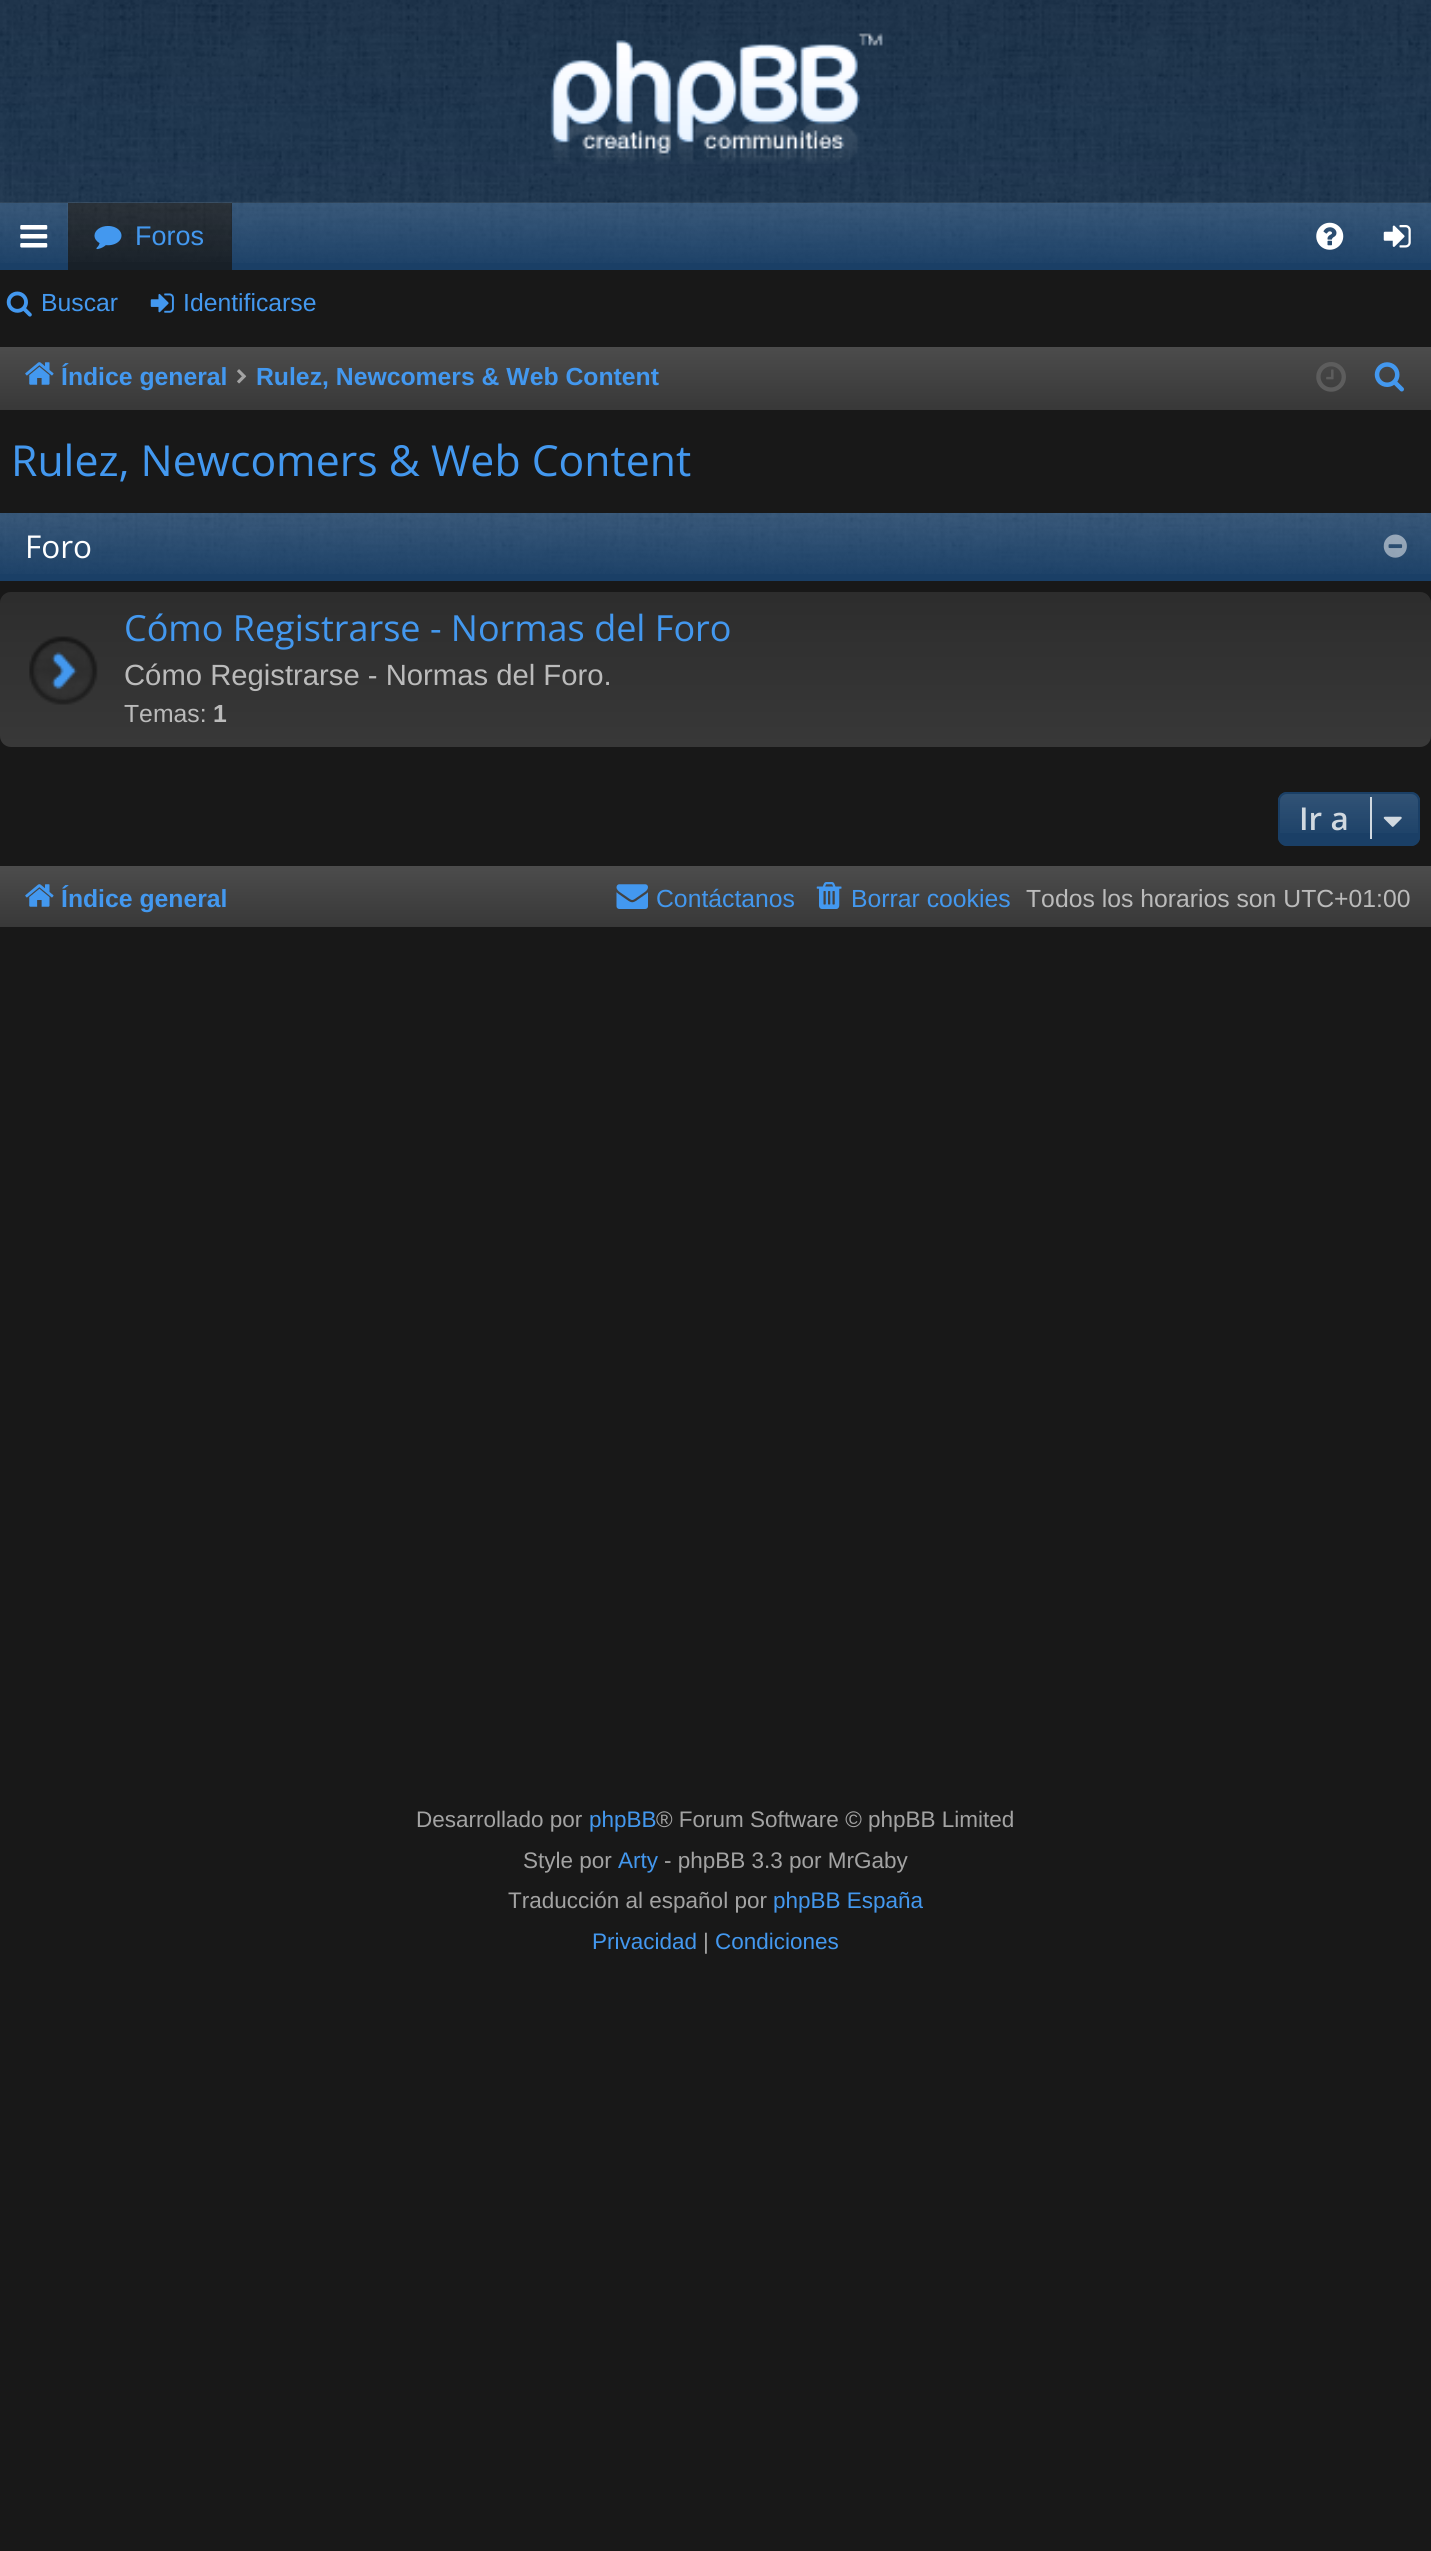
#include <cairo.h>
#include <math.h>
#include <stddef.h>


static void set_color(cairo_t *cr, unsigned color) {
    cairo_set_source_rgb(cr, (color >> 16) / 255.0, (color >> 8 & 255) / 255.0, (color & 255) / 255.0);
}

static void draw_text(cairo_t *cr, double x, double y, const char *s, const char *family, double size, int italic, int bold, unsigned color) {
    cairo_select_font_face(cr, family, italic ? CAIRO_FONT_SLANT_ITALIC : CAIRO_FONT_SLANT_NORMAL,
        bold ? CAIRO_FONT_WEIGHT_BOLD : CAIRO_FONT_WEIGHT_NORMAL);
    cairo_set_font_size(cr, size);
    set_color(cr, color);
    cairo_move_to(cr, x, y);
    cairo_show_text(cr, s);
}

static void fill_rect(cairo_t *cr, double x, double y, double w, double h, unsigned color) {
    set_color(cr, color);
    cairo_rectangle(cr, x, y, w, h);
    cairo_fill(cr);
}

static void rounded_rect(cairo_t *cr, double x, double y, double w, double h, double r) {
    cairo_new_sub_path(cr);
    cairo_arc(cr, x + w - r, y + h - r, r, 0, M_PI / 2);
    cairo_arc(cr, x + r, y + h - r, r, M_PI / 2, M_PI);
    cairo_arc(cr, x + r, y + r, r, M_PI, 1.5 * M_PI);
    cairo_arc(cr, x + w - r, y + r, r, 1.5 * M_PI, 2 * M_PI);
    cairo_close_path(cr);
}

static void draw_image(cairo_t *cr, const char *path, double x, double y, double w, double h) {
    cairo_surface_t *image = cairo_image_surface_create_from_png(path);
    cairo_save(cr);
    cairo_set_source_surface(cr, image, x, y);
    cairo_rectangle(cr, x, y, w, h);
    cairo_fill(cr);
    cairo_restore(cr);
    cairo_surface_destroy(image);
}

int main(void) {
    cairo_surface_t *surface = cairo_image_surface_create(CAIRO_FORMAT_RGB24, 1431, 2551);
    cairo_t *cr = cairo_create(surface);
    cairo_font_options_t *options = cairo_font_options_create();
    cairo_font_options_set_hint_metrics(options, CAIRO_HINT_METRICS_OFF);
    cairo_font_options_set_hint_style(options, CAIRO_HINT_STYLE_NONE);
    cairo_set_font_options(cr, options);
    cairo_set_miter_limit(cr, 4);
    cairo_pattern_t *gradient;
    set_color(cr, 0x181818);
    cairo_paint(cr);
    fill_rect(cr, 0, 0, 1431, 203, 0x1A3A5C);
    draw_image(cr, "assets/img1.png", 0, 0, 1431, 203);
    draw_image(cr, "assets/img2.png", 550, 33, 333, 131);
    fill_rect(cr, 0, 203, 1431, 67, 0x1A3F66);
    draw_image(cr, "assets/img3.png", 0, 202, 1431, 61);
    draw_image(cr, "assets/img4.png", 20, 225, 28, 23);
    fill_rect(cr, 68, 203, 164, 67, 0x182028);
    draw_image(cr, "assets/img5.png", 67, 202, 165, 60);
    draw_image(cr, "assets/img6.png", 94, 226, 28, 24);
    draw_text(cr, 135, 245, "Foros", "Liberation Sans", 27, 0, 0, 0x4398EF);
    draw_image(cr, "assets/img7.png", 1316, 222, 28, 28);
    draw_image(cr, "assets/img8.png", 1383, 225, 28, 23);
    draw_image(cr, "assets/img9.png", 6, 291, 26, 26);
    draw_text(cr, 41, 311, "Buscar", "Liberation Sans", 24.75, 0, 0, 0x4398EF);
    draw_image(cr, "assets/img10.png", 150, 293, 24, 20);
    draw_text(cr, 183, 311, "Identificarse", "Liberation Sans", 24.75, 0, 0, 0x4398EF);
    gradient = cairo_pattern_create_linear(716, 346, 716, 410);
    cairo_pattern_add_color_stop_rgba(gradient, 0, 0.298, 0.298, 0.298, 1);
    cairo_pattern_add_color_stop_rgba(gradient, 1, 0.22, 0.22, 0.22, 1);
    cairo_set_source(cr, gradient);
    cairo_pattern_destroy(gradient);
    cairo_rectangle(cr, 0, 347, 1431, 63);
    cairo_fill(cr);
    draw_image(cr, "assets/img11.png", 25, 362, 29, 23);
    draw_text(cr, 61, 385, "Índice general", "Liberation Sans", 24.75, 0, 1, 0x4398EF);
    draw_image(cr, "assets/img12.png", 237, 369, 10, 15);
    draw_text(cr, 256, 385, "Rulez, Newcomers & Web Content", "Liberation Sans", 24.75, 0, 1, 0x4398EF);
    draw_image(cr, "assets/img13.png", 1316, 362, 30, 30);
    draw_image(cr, "assets/img14.png", 1374, 362, 30, 30);
    draw_text(cr, 11, 476, "Rulez, Newcomers & Web Content", "Open Sans", 42.75, 0, 0, 0x4398EF);
    fill_rect(cr, 0, 513, 1431, 68, 0x1A3F66);
    draw_image(cr, "assets/img15.png", 0, 513, 1431, 61);
    draw_text(cr, 25, 558, "Foro", "Open Sans", 31.5, 0, 0, 0xFFFFFF);
    draw_image(cr, "assets/img16.png", 1383, 534, 24, 24);
    set_color(cr, 0x383838);
    rounded_rect(cr, 0, 592, 1431, 155, 11);
    cairo_fill(cr);
    gradient = cairo_pattern_create_linear(716, 592, 716, 747);
    cairo_pattern_add_color_stop_rgba(gradient, 0, 0, 0, 0, 0.2);
    cairo_pattern_add_color_stop_rgba(gradient, 1, 0, 0, 0, 0);
    cairo_set_source(cr, gradient);
    cairo_pattern_destroy(gradient);
    rounded_rect(cr, 0, 592, 1431, 155, 11);
    cairo_fill(cr);
    draw_image(cr, "assets/img17.png", 29, 636, 69, 69);
    draw_text(cr, 124, 641, "Cómo Registrarse - Normas del Foro", "Open Sans", 36, 0, 0, 0x4398EF);
    draw_text(cr, 124, 685, "Cómo Registrarse - Normas del Foro.", "Liberation Sans", 29.25, 0, 0, 0xBBBBBB);
    draw_text(cr, 124, 722, "Temas:", "Liberation Sans", 24.75, 0, 0, 0xBBBBBB);
    draw_text(cr, 213, 722, "1", "Liberation Sans", 24.75, 0, 1, 0xBBBBBB);
    set_color(cr, 0x1A3F66);
    rounded_rect(cr, 1278, 792, 142, 54, 9);
    cairo_fill(cr);
    cairo_save(cr);
    rounded_rect(cr, 1278, 792, 142, 54, 9);
    cairo_clip(cr);
    gradient = cairo_pattern_create_linear(1349, 794, 1349, 844);
    cairo_pattern_add_color_stop_rgba(gradient, 0, 1, 1, 1, 0.1);
    cairo_pattern_add_color_stop_rgba(gradient, 1, 1, 1, 1, 0);
    cairo_set_source(cr, gradient);
    cairo_pattern_destroy(gradient);
    cairo_rectangle(cr, 1278, 794, 142, 39);
    cairo_fill(cr);
    cairo_restore(cr);
    rounded_rect(cr, 1279, 793, 140, 52, 8);
    cairo_stroke(cr);
    draw_text(cr, 1299, 830, "Ir a", "Open Sans SemiBold", 31.5, 0, 0, 0xD1D9E0);
    fill_rect(cr, 1370, 797, 2, 42, 0xD1D9E0);
    draw_image(cr, "assets/img18.png", 1383, 816, 19, 11);
    gradient = cairo_pattern_create_linear(716, 866, 716, 927);
    cairo_pattern_add_color_stop_rgba(gradient, 0, 0.298, 0.298, 0.298, 1);
    cairo_pattern_add_color_stop_rgba(gradient, 1, 0.22, 0.22, 0.22, 1);
    cairo_set_source(cr, gradient);
    cairo_pattern_destroy(gradient);
    cairo_rectangle(cr, 0, 866, 1431, 61);
    cairo_fill(cr);
    draw_image(cr, "assets/img19.png", 25, 884, 29, 23);
    draw_text(cr, 61, 907, "Índice general", "Liberation Sans", 24.75, 0, 1, 0x4398EF);
    draw_image(cr, "assets/img20.png", 616, 884, 32, 25);
    draw_text(cr, 656, 907, "Contáctanos", "Liberation Sans", 24.75, 0, 0, 0x4398EF);
    draw_image(cr, "assets/img21.png", 816, 882, 26, 27);
    draw_text(cr, 851, 907, "Borrar cookies", "Liberation Sans", 24.75, 0, 0, 0x4398EF);
    draw_text(cr, 1026, 907, "Todos los horarios son UTC+01:00", "Liberation Sans", 24.75, 0, 0, 0xBBBBBB);
    draw_text(cr, 416, 1827, "Desarrollado por", "Liberation Sans", 22.5, 0, 0, 0xA3A3A3);
    draw_text(cr, 589, 1827, "phpBB", "Liberation Sans", 22.5, 0, 0, 0x4398EF);
    draw_text(cr, 656, 1827, "® Forum Software © phpBB Limited", "Liberation Sans", 22.5, 0, 0, 0xA3A3A3);
    draw_text(cr, 523, 1868, "Style por", "Liberation Sans", 22.5, 0, 0, 0xA3A3A3);
    draw_text(cr, 618, 1868, "Arty", "Liberation Sans", 22.5, 0, 0, 0x4398EF);
    draw_text(cr, 664, 1868, "- phpBB 3.3 por MrGaby", "Liberation Sans", 22.5, 0, 0, 0xA3A3A3);
    draw_text(cr, 508, 1908, "Traducción al español por", "Liberation Sans", 22.5, 0, 0, 0xA3A3A3);
    draw_text(cr, 773, 1908, "phpBB España", "Liberation Sans", 22.5, 0, 0, 0x4398EF);
    draw_text(cr, 592, 1949, "Privacidad", "Liberation Sans", 22.5, 0, 0, 0x4398EF);
    draw_text(cr, 703, 1949, "|", "Liberation Sans", 22.5, 0, 0, 0xA3A3A3);
    draw_text(cr, 715, 1949, "Condiciones", "Liberation Sans", 22.5, 0, 0, 0x4398EF);
    cairo_surface_write_to_png(surface, "output.png");
    cairo_font_options_destroy(options);
    cairo_destroy(cr);
    cairo_surface_destroy(surface);
    return 0;
}
